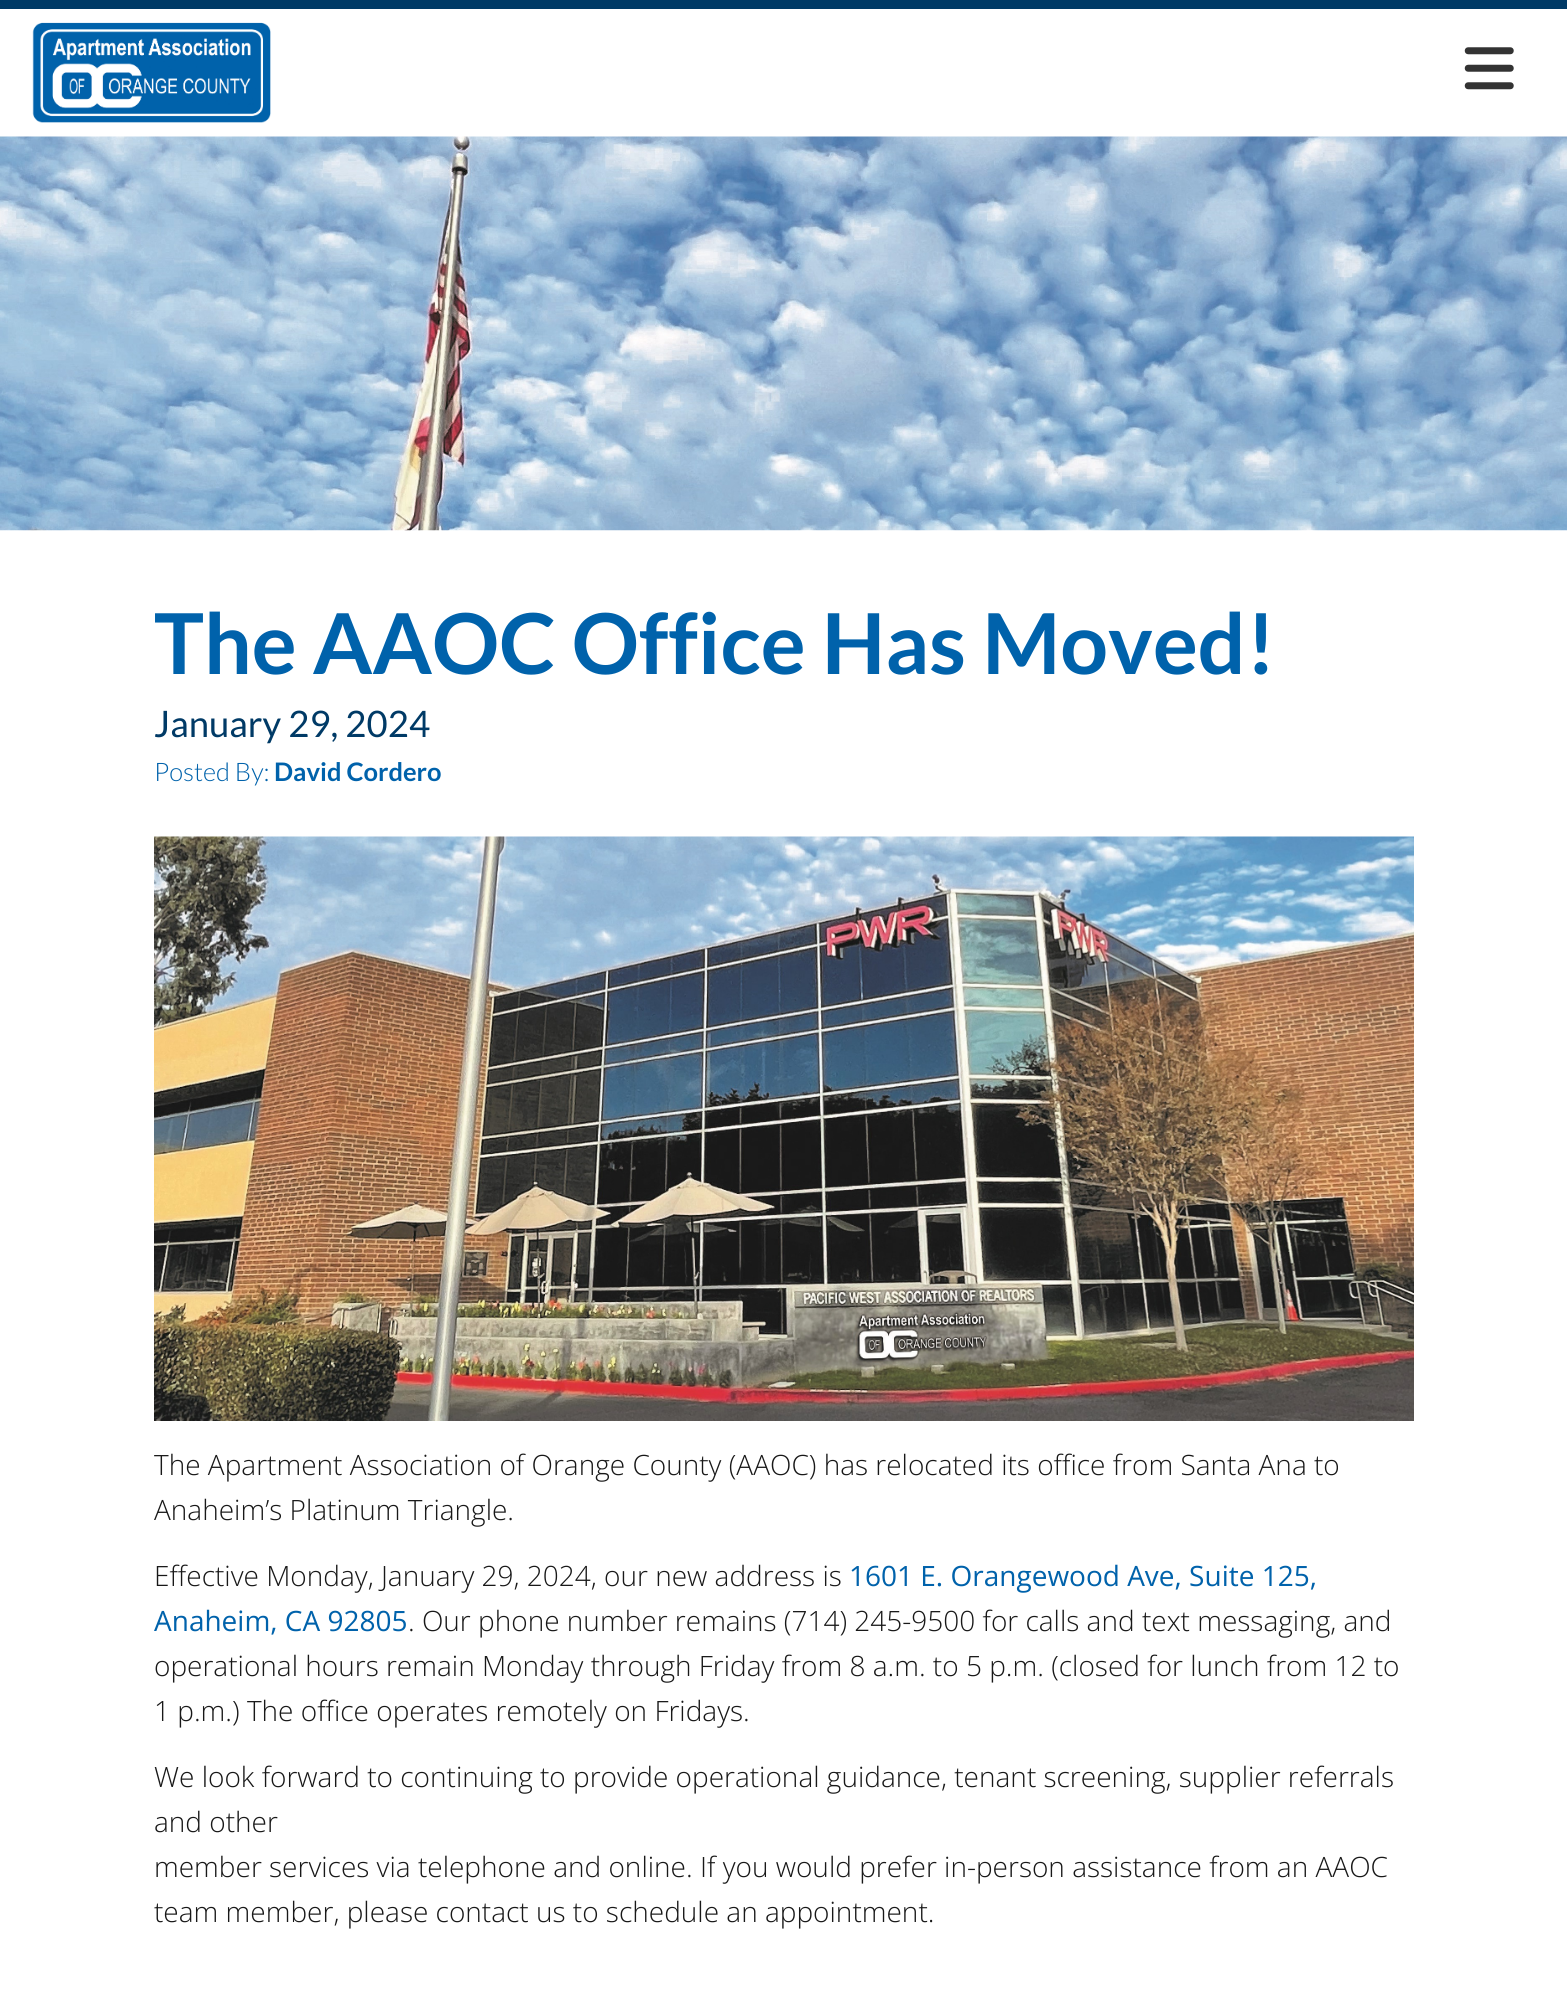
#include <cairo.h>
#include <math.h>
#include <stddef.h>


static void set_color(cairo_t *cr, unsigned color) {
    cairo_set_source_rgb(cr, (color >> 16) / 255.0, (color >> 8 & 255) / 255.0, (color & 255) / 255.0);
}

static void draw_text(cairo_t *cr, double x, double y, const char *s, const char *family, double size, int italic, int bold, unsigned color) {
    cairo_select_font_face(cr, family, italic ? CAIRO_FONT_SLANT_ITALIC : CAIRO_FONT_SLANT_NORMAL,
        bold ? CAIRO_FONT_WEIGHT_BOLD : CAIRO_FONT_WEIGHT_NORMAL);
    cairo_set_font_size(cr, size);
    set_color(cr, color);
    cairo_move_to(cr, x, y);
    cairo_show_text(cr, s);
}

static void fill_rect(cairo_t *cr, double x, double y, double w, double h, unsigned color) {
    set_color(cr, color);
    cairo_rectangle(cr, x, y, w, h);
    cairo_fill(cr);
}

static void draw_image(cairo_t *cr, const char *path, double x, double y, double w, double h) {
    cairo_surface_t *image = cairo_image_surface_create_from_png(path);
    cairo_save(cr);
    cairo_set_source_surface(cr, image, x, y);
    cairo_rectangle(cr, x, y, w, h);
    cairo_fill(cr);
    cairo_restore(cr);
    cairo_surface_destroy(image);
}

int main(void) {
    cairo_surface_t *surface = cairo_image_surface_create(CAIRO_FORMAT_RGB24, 1567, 1999);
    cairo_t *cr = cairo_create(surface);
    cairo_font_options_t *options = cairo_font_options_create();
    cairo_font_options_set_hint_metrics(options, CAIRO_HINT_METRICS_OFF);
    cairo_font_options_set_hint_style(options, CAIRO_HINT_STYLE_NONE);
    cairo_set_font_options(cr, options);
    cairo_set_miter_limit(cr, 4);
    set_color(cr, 0xFFFFFF);
    cairo_paint(cr);
    fill_rect(cr, 0, 0, 1567, 9, 0x003A66);
    draw_image(cr, "assets/img1.png", 32, 22, 239, 101);
    draw_image(cr, "assets/img2.png", 1464, 47, 50, 43);
    draw_image(cr, "assets/img3.png", 0, 136, 1567, 395);
    draw_text(cr, 154, 674, "The AAOC Office Has Moved!", "Lato", 84, 0, 1, 0x0062AB);
    draw_text(cr, 154, 737, "January 29, 2024", "Lato", 36.5, 0, 0, 0x003A66);
    draw_text(cr, 154, 781, "Posted By:", "Lato Light", 25.5, 0, 0, 0x0062AB);
    draw_text(cr, 274, 781, "David Cordero", "Lato", 25.5, 0, 1, 0x0062AB);
    draw_image(cr, "assets/img4.png", 154, 836, 1260, 585);
    draw_text(cr, 154, 1475, "The Apartment Association of Orange County (AAOC) has relocated its office from Santa Ana to", "Open Sans Light", 28, 0, 0, 0x181818);
    draw_text(cr, 154, 1520, "Anaheim’s Platinum Triangle.", "Open Sans Light", 28, 0, 0, 0x181818);
    draw_text(cr, 154, 1586, "Effective Monday, January 29, 2024, our new address is", "Open Sans Light", 28, 0, 0, 0x181818);
    draw_text(cr, 849, 1586, "1601 E. Orangewood Ave, Suite 125,", "Open Sans", 28, 0, 0, 0x0062AB);
    draw_text(cr, 154, 1631, "Anaheim, CA 92805", "Open Sans", 28, 0, 0, 0x0062AB);
    draw_text(cr, 408, 1631, ". Our phone number remains (714) 245-9500 for calls and text messaging, and", "Open Sans Light", 28, 0, 0, 0x181818);
    draw_text(cr, 154, 1676, "operational hours remain Monday through Friday from 8 a.m. to 5 p.m. (closed for lunch from 12 to", "Open Sans Light", 28, 0, 0, 0x181818);
    draw_text(cr, 154, 1721, "1 p.m.) The office operates remotely on Fridays.", "Open Sans Light", 28, 0, 0, 0x181818);
    draw_text(cr, 154, 1787, "We look forward to continuing to provide operational guidance, tenant screening, supplier referrals", "Open Sans Light", 28, 0, 0, 0x181818);
    draw_text(cr, 154, 1832, "and other", "Open Sans Light", 28, 0, 0, 0x181818);
    draw_text(cr, 154, 1877, "member services via telephone and online. If you would prefer in-person assistance from an AAOC", "Open Sans Light", 28, 0, 0, 0x181818);
    draw_text(cr, 154, 1922, "team member, please contact us to schedule an appointment.", "Open Sans Light", 28, 0, 0, 0x181818);
    cairo_surface_write_to_png(surface, "output.png");
    cairo_font_options_destroy(options);
    cairo_destroy(cr);
    cairo_surface_destroy(surface);
    return 0;
}
